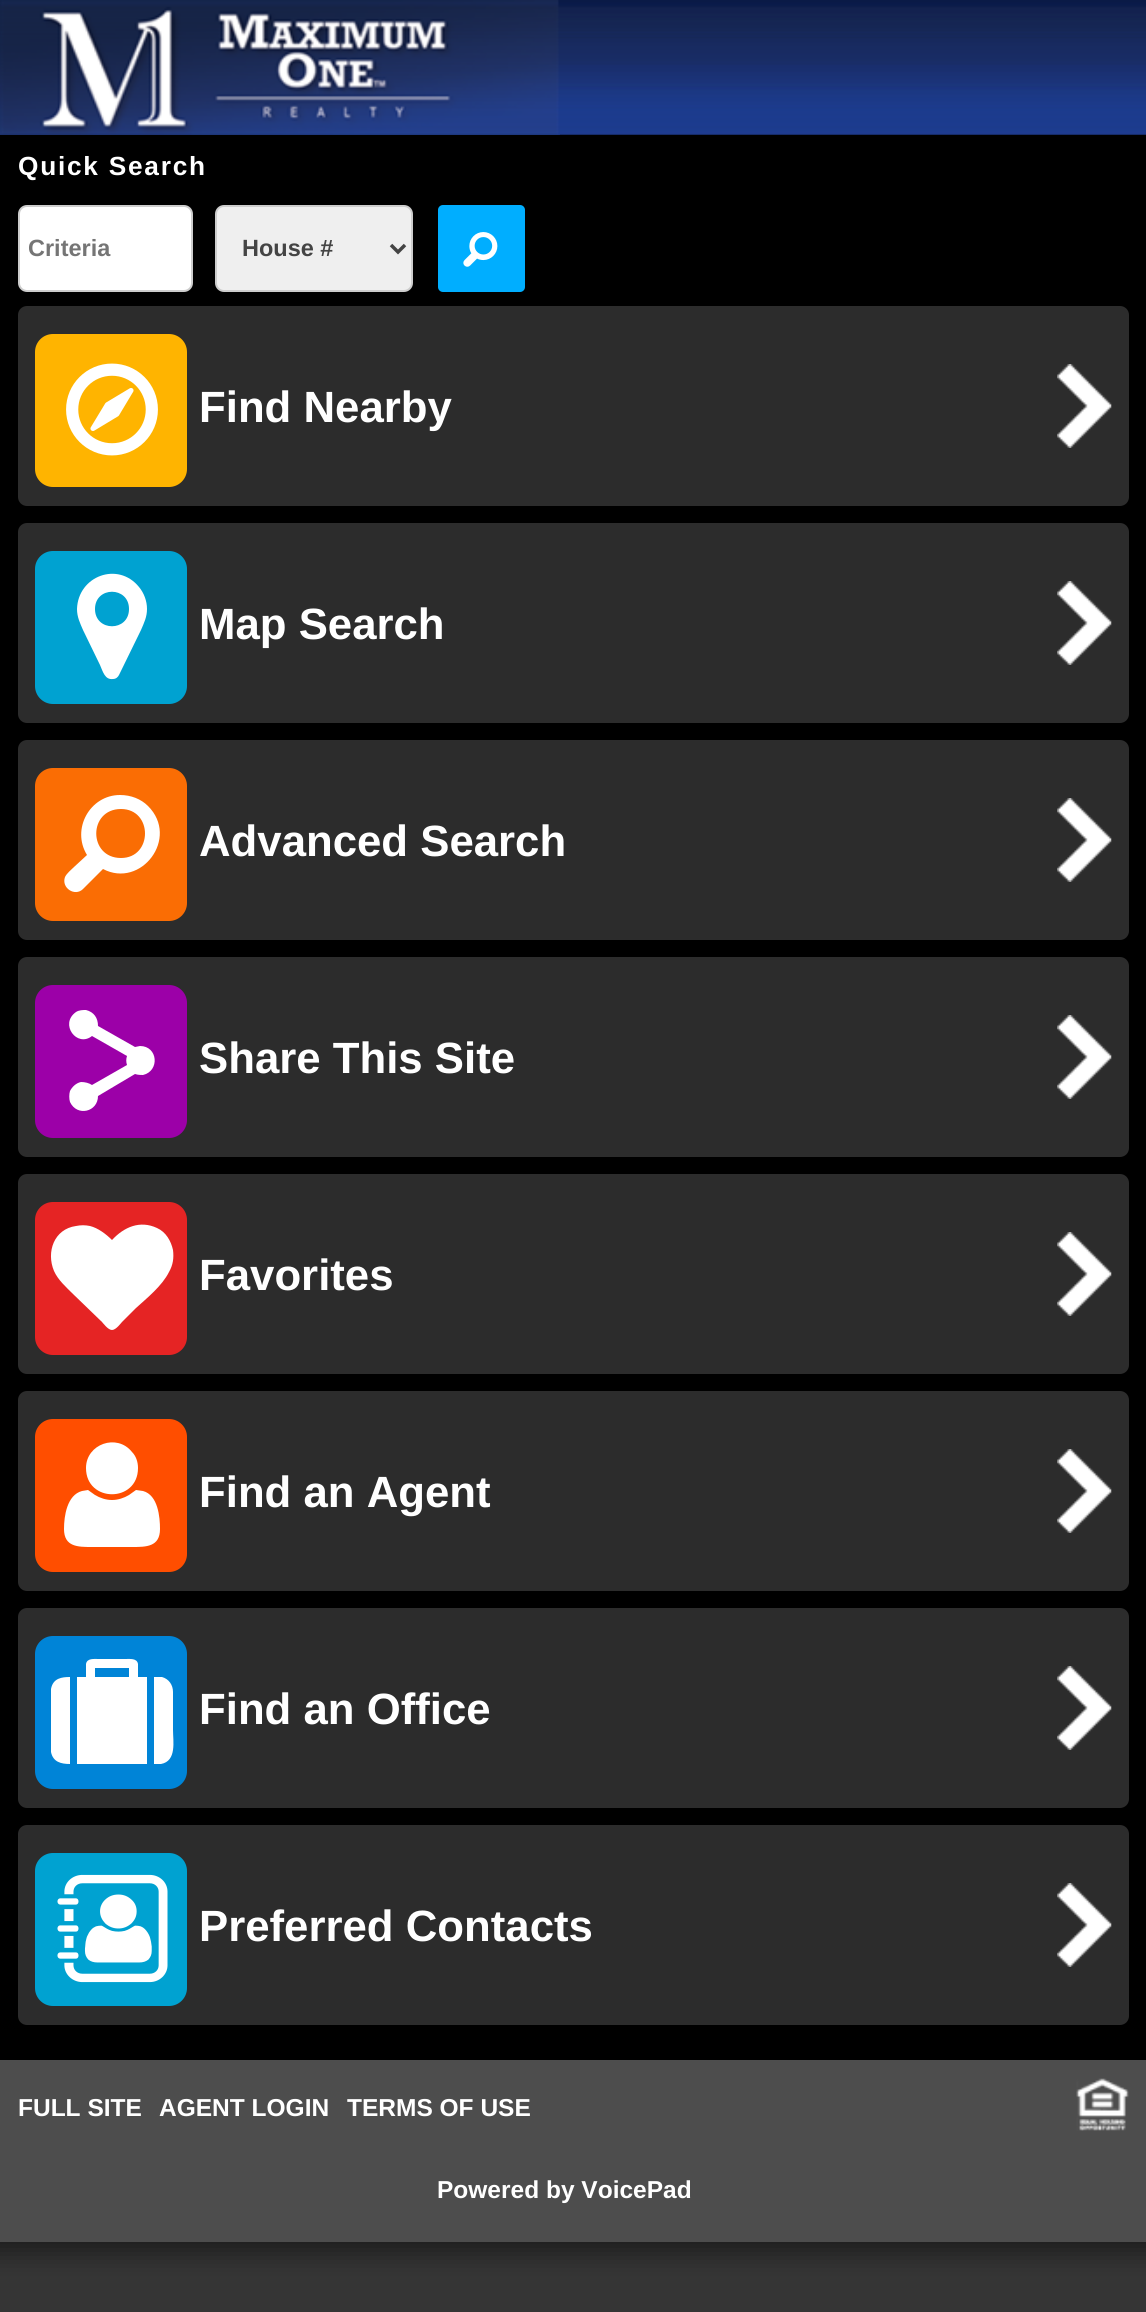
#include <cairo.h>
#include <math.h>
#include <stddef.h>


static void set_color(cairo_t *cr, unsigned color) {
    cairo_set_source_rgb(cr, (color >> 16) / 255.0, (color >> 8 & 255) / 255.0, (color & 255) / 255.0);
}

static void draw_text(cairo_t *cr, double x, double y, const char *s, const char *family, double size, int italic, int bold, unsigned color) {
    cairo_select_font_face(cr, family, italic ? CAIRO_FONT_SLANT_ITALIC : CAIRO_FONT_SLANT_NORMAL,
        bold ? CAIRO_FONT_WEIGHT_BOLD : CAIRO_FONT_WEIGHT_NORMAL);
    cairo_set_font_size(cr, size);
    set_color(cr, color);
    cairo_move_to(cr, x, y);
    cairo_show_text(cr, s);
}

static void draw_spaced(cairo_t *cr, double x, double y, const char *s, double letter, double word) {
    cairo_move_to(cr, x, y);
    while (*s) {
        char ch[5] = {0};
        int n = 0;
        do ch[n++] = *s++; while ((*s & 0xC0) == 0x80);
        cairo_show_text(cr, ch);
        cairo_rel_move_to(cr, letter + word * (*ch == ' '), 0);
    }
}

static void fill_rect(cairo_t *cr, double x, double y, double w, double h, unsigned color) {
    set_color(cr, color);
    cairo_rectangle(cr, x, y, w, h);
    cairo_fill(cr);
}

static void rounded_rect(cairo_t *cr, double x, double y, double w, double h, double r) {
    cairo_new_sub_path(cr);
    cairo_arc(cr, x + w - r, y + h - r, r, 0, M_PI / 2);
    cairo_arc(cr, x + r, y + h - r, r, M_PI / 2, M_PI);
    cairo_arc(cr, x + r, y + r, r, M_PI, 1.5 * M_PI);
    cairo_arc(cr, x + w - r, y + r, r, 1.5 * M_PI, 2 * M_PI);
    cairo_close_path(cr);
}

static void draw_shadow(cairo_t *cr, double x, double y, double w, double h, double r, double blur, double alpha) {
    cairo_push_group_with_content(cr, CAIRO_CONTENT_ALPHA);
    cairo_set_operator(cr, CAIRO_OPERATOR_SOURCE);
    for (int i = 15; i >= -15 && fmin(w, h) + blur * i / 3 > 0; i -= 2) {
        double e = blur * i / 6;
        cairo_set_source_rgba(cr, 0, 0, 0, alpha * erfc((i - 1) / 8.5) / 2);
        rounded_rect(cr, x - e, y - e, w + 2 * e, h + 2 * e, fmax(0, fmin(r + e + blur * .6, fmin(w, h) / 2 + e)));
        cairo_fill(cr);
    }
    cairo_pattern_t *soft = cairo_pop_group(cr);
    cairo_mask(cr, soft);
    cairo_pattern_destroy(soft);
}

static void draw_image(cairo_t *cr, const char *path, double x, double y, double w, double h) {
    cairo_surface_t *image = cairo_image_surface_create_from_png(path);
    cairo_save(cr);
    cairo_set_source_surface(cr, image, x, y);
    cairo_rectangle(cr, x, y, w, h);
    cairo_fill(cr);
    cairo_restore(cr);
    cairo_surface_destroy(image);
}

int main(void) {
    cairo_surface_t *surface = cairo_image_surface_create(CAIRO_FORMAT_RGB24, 1146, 2312);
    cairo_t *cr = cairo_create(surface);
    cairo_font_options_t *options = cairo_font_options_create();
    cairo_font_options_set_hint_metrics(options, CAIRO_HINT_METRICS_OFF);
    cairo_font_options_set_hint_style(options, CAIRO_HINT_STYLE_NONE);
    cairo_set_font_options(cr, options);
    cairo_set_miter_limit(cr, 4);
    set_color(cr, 0x353535);
    cairo_paint(cr);
    set_color(cr, 0x000000);
    draw_shadow(cr, -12, -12, 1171, 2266, 0, 12, 0.45);
    fill_rect(cr, 0, 134, 1146, 1926, 0x000000);
    draw_image(cr, "assets/img1.png", 0, 0, 1146, 135);
    draw_image(cr, "assets/img2.png", 0, 0, 560, 135);
    cairo_select_font_face(cr, "Liberation Sans", CAIRO_FONT_SLANT_NORMAL, CAIRO_FONT_WEIGHT_BOLD);
    cairo_set_font_size(cr, 26.25);
    set_color(cr, 0xFFFFFF);
    draw_spaced(cr, 18, 175, "Quick Search", 1.75, 0);
    rounded_rect(cr, 19, 206, 173, 85, 8);
    cairo_fill_preserve(cr);
    set_color(cr, 0xCDCDCD);
    cairo_stroke(cr);
    draw_text(cr, 28, 256, "Criteria", "Liberation Sans", 23.5, 0, 1, 0x757575);
    set_color(cr, 0xEFEFEF);
    rounded_rect(cr, 216, 206, 196, 85, 8);
    cairo_fill_preserve(cr);
    set_color(cr, 0xCDCDCD);
    cairo_stroke(cr);
    cairo_new_path(cr);
    cairo_move_to(cr, 391, 245);
    cairo_line_to(cr, 398, 252);
    cairo_line_to(cr, 405, 245);
    set_color(cr, 0x444444);
    cairo_set_line_width(cr, 3.5);
    cairo_stroke(cr);
    draw_text(cr, 242, 256, "House #", "Liberation Sans", 23.5, 0, 1, 0x444444);
    set_color(cr, 0x00AEFF);
    rounded_rect(cr, 438, 205, 87, 87, 5);
    cairo_fill(cr);
    draw_image(cr, "assets/img3.png", 463, 232, 35, 35);
    set_color(cr, 0x2C2C2C);
    rounded_rect(cr, 18, 306, 1111, 200, 9);
    cairo_fill(cr);
    draw_image(cr, "assets/img4.png", 1057, 364, 55, 84);
    set_color(cr, 0xFFB400);
    rounded_rect(cr, 35, 334, 152, 153, 18);
    cairo_fill(cr);
    draw_image(cr, "assets/img5.png", 66, 363, 92, 93);
    draw_text(cr, 199, 422, "Find Nearby", "Liberation Sans", 43.75, 0, 1, 0xFFFFFF);
    set_color(cr, 0x2C2C2C);
    rounded_rect(cr, 18, 523, 1111, 200, 9);
    cairo_fill(cr);
    draw_image(cr, "assets/img4.png", 1057, 581, 55, 84);
    set_color(cr, 0x00A2D1);
    rounded_rect(cr, 35, 551, 152, 153, 18);
    cairo_fill(cr);
    set_color(cr, 0xFFFFFF);
    cairo_new_path(cr);
    cairo_move_to(cr, 129, 609);
    cairo_curve_to(cr, 129, 632, 95, 632, 95, 609);
    cairo_curve_to(cr, 95, 586, 129, 586, 129, 609);
    cairo_close_path(cr);
    cairo_move_to(cr, 147, 609);
    cairo_curve_to(cr, 147, 601, 144, 593, 139, 587);
    cairo_curve_to(cr, 118, 561, 78, 576, 77, 609);
    cairo_curve_to(cr, 77, 617, 80, 623, 83, 630);
    cairo_line_to(cr, 100, 665);
    cairo_curve_to(cr, 103, 672, 105, 680, 113, 679);
    cairo_curve_to(cr, 116, 679, 118, 677, 119, 675);
    cairo_line_to(cr, 141, 630);
    cairo_curve_to(cr, 144, 623, 147, 617, 147, 609);
    cairo_close_path(cr);
    cairo_fill(cr);
    draw_text(cr, 199, 639, "Map Search", "Liberation Sans", 43.75, 0, 1, 0xFFFFFF);
    set_color(cr, 0x2C2C2C);
    rounded_rect(cr, 18, 740, 1111, 200, 9);
    cairo_fill(cr);
    draw_image(cr, "assets/img4.png", 1057, 798, 55, 84);
    set_color(cr, 0xFA6D04);
    rounded_rect(cr, 35, 768, 152, 153, 18);
    cairo_fill(cr);
    set_color(cr, 0xFFFFFF);
    cairo_new_path(cr);
    cairo_move_to(cr, 120, 795);
    cairo_curve_to(cr, 131, 795, 141, 799, 148, 806);
    cairo_curve_to(cr, 180, 838, 141, 889, 103, 869);
    cairo_line_to(cr, 83, 889);
    cairo_curve_to(cr, 75, 897, 61, 888, 65, 877);
    cairo_curve_to(cr, 67, 873, 71, 870, 74, 867);
    cairo_line_to(cr, 87, 855);
    cairo_curve_to(cr, 71, 829, 90, 795, 120, 795);
    cairo_close_path(cr);
    cairo_move_to(cr, 121, 858);
    cairo_curve_to(cr, 153, 858, 153, 809, 121, 809);
    cairo_curve_to(cr, 88, 809, 88, 858, 121, 858);
    cairo_close_path(cr);
    cairo_fill(cr);
    draw_text(cr, 199, 856, "Advanced Search", "Liberation Sans", 43.75, 0, 1, 0xFFFFFF);
    set_color(cr, 0x2C2C2C);
    rounded_rect(cr, 18, 957, 1111, 200, 9);
    cairo_fill(cr);
    draw_image(cr, "assets/img4.png", 1057, 1015, 55, 84);
    set_color(cr, 0x9C00A8);
    rounded_rect(cr, 35, 985, 152, 153, 18);
    cairo_fill(cr);
    set_color(cr, 0xFFFFFF);
    cairo_new_path(cr);
    cairo_move_to(cr, 140, 1046);
    cairo_curve_to(cr, 158, 1046, 160, 1071, 143, 1075);
    cairo_curve_to(cr, 141, 1075, 138, 1075, 135, 1074);
    cairo_line_to(cr, 98, 1096);
    cairo_curve_to(cr, 98, 1112, 77, 1117, 70, 1102);
    cairo_curve_to(cr, 69, 1099, 69, 1094, 70, 1091);
    cairo_curve_to(cr, 72, 1087, 76, 1083, 81, 1082);
    cairo_curve_to(cr, 85, 1082, 89, 1083, 92, 1085);
    cairo_line_to(cr, 127, 1065);
    cairo_curve_to(cr, 126, 1062, 126, 1059, 127, 1056);
    cairo_line_to(cr, 92, 1036);
    cairo_curve_to(cr, 77, 1048, 59, 1024, 76, 1012);
    cairo_curve_to(cr, 79, 1010, 83, 1010, 86, 1010);
    cairo_curve_to(cr, 94, 1012, 98, 1018, 98, 1026);
    cairo_line_to(cr, 135, 1047);
    cairo_close_path(cr);
    cairo_fill(cr);
    draw_text(cr, 199, 1073, "Share This Site", "Liberation Sans", 43.75, 0, 1, 0xFFFFFF);
    set_color(cr, 0x2C2C2C);
    rounded_rect(cr, 18, 1174, 1111, 200, 9);
    cairo_fill(cr);
    draw_image(cr, "assets/img4.png", 1057, 1232, 55, 84);
    set_color(cr, 0xE52424);
    rounded_rect(cr, 35, 1202, 152, 153, 18);
    cairo_fill(cr);
    set_color(cr, 0xFFFFFF);
    cairo_new_path(cr);
    cairo_move_to(cr, 112, 1330);
    cairo_curve_to(cr, 116, 1330, 121, 1323, 122, 1322);
    cairo_line_to(cr, 136, 1308);
    cairo_curve_to(cr, 147, 1298, 162, 1286, 169, 1272);
    cairo_curve_to(cr, 173, 1265, 174, 1258, 173, 1250);
    cairo_curve_to(cr, 171, 1241, 166, 1232, 157, 1228);
    cairo_curve_to(cr, 140, 1220, 124, 1227, 112, 1240);
    cairo_curve_to(cr, 106, 1234, 98, 1228, 90, 1226);
    cairo_curve_to(cr, 85, 1225, 81, 1225, 76, 1226);
    cairo_curve_to(cr, 54, 1229, 46, 1252, 54, 1271);
    cairo_curve_to(cr, 58, 1280, 66, 1287, 73, 1294);
    cairo_line_to(cr, 102, 1322);
    cairo_curve_to(cr, 103, 1323, 108, 1330, 112, 1330);
    cairo_close_path(cr);
    cairo_fill(cr);
    draw_text(cr, 199, 1290, "Favorites", "Liberation Sans", 43.75, 0, 1, 0xFFFFFF);
    set_color(cr, 0x2C2C2C);
    rounded_rect(cr, 18, 1391, 1111, 200, 9);
    cairo_fill(cr);
    draw_image(cr, "assets/img4.png", 1057, 1449, 55, 84);
    set_color(cr, 0xFF4E00);
    rounded_rect(cr, 35, 1419, 152, 153, 18);
    cairo_fill(cr);
    set_color(cr, 0xFFFFFF);
    cairo_new_path(cr);
    cairo_move_to(cr, 160, 1529);
    cairo_curve_to(cr, 160, 1517, 158, 1495, 143, 1491);
    cairo_line_to(cr, 136, 1490);
    cairo_line_to(cr, 129, 1495);
    cairo_curve_to(cr, 124, 1498, 118, 1500, 112, 1500);
    cairo_curve_to(cr, 106, 1500, 100, 1498, 95, 1495);
    cairo_line_to(cr, 88, 1490);
    cairo_line_to(cr, 82, 1491);
    cairo_curve_to(cr, 67, 1495, 64, 1516, 64, 1529);
    cairo_curve_to(cr, 64, 1547, 78, 1547, 92, 1547);
    cairo_line_to(cr, 132, 1547);
    cairo_curve_to(cr, 146, 1547, 160, 1547, 160, 1529);
    cairo_close_path(cr);
    cairo_move_to(cr, 138, 1468);
    cairo_curve_to(cr, 138, 1462, 136, 1456, 132, 1452);
    cairo_curve_to(cr, 117, 1433, 86, 1444, 86, 1468);
    cairo_curve_to(cr, 86, 1503, 138, 1503, 138, 1468);
    cairo_close_path(cr);
    cairo_fill(cr);
    draw_text(cr, 199, 1507, "Find an Agent", "Liberation Sans", 43.75, 0, 1, 0xFFFFFF);
    set_color(cr, 0x2C2C2C);
    rounded_rect(cr, 18, 1608, 1111, 200, 9);
    cairo_fill(cr);
    draw_image(cr, "assets/img4.png", 1057, 1666, 55, 84);
    set_color(cr, 0x0084D7);
    rounded_rect(cr, 35, 1636, 152, 153, 18);
    cairo_fill(cr);
    set_color(cr, 0xFFFFFF);
    cairo_new_path(cr);
    cairo_move_to(cr, 95, 1677);
    cairo_line_to(cr, 95, 1668);
    cairo_line_to(cr, 129, 1668);
    cairo_line_to(cr, 129, 1677);
    cairo_close_path(cr);
    cairo_move_to(cr, 70, 1677);
    cairo_curve_to(cr, 62, 1677, 53, 1678, 51, 1689);
    cairo_line_to(cr, 51, 1752);
    cairo_curve_to(cr, 53, 1762, 61, 1764, 70, 1764);
    cairo_close_path(cr);
    cairo_move_to(cr, 147, 1677);
    cairo_line_to(cr, 138, 1677);
    cairo_line_to(cr, 138, 1664);
    cairo_curve_to(cr, 137, 1658, 130, 1659, 125, 1659);
    cairo_line_to(cr, 99, 1659);
    cairo_curve_to(cr, 94, 1659, 87, 1658, 86, 1664);
    cairo_line_to(cr, 86, 1677);
    cairo_line_to(cr, 77, 1677);
    cairo_line_to(cr, 77, 1764);
    cairo_line_to(cr, 147, 1764);
    cairo_close_path(cr);
    cairo_move_to(cr, 173, 1692);
    cairo_curve_to(cr, 173, 1685, 169, 1679, 162, 1677);
    cairo_line_to(cr, 154, 1677);
    cairo_line_to(cr, 154, 1764);
    cairo_line_to(cr, 161, 1764);
    cairo_curve_to(cr, 177, 1761, 173, 1741, 173, 1730);
    cairo_close_path(cr);
    cairo_fill(cr);
    draw_text(cr, 199, 1724, "Find an Office", "Liberation Sans", 43.75, 0, 1, 0xFFFFFF);
    set_color(cr, 0x2C2C2C);
    rounded_rect(cr, 18, 1825, 1111, 200, 9);
    cairo_fill(cr);
    draw_image(cr, "assets/img6.png", 1057, 1883, 55, 84);
    set_color(cr, 0x00A2D1);
    rounded_rect(cr, 35, 1853, 152, 153, 18);
    cairo_fill(cr);
    draw_image(cr, "assets/img7.png", 57, 1874, 111, 109);
    draw_text(cr, 199, 1941, "Preferred Contacts", "Liberation Sans", 43.75, 0, 1, 0xFFFFFF);
    fill_rect(cr, 0, 2060, 1146, 182, 0x4D4D4D);
    draw_text(cr, 18, 2116, "FULL SITE", "Liberation Sans", 24.5, 0, 1, 0xFFFFFF);
    draw_text(cr, 159, 2116, "AGENT LOGIN", "Liberation Sans", 24.5, 0, 1, 0xFFFFFF);
    draw_text(cr, 347, 2116, "TERMS OF USE", "Liberation Sans", 24.5, 0, 1, 0xFFFFFF);
    draw_image(cr, "assets/img8.png", 1076, 2078, 53, 53);
    draw_text(cr, 437, 2198, "Powered by VoicePad", "Liberation Sans", 24.5, 0, 1, 0xFFFFFF);
    cairo_surface_write_to_png(surface, "output.png");
    cairo_font_options_destroy(options);
    cairo_destroy(cr);
    cairo_surface_destroy(surface);
    return 0;
}
